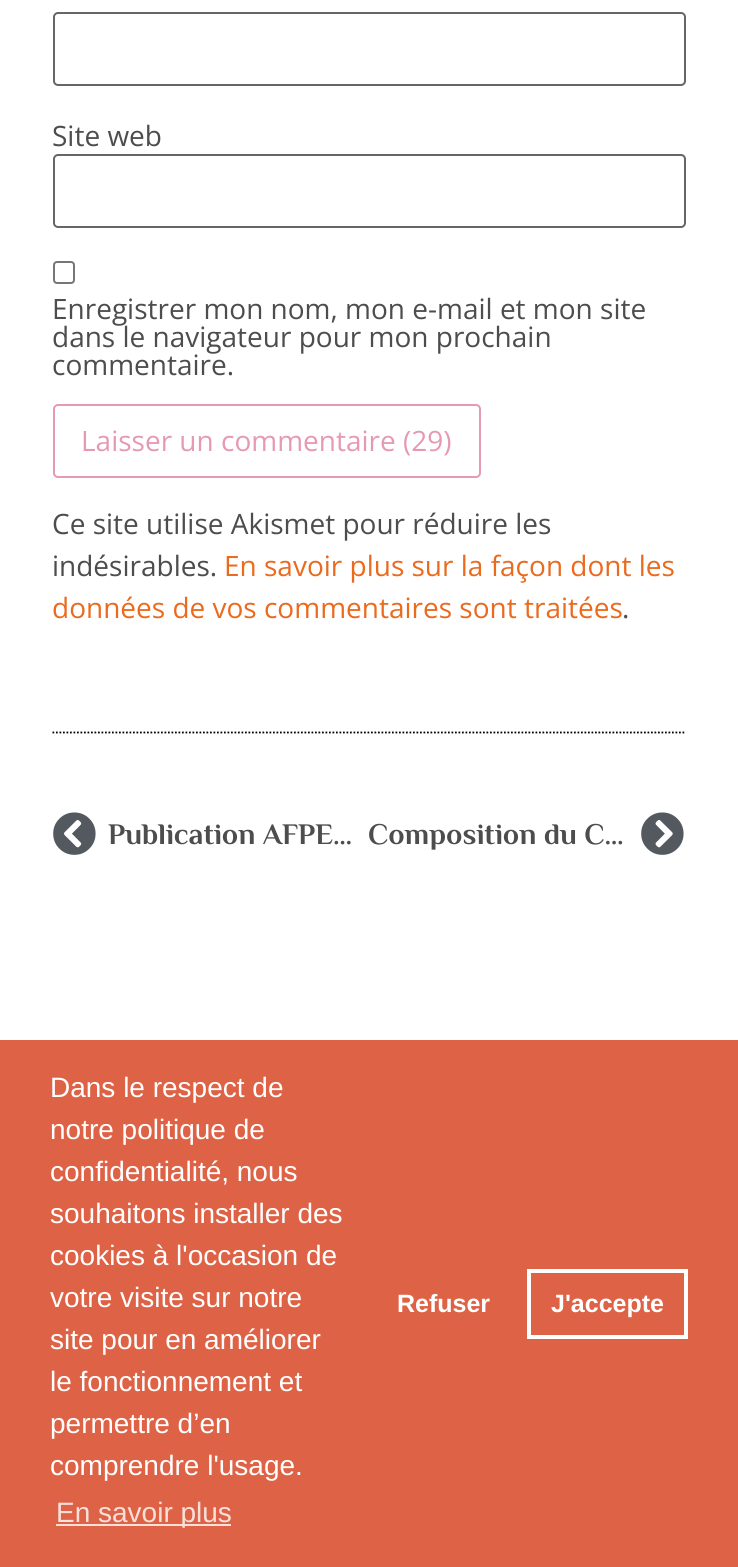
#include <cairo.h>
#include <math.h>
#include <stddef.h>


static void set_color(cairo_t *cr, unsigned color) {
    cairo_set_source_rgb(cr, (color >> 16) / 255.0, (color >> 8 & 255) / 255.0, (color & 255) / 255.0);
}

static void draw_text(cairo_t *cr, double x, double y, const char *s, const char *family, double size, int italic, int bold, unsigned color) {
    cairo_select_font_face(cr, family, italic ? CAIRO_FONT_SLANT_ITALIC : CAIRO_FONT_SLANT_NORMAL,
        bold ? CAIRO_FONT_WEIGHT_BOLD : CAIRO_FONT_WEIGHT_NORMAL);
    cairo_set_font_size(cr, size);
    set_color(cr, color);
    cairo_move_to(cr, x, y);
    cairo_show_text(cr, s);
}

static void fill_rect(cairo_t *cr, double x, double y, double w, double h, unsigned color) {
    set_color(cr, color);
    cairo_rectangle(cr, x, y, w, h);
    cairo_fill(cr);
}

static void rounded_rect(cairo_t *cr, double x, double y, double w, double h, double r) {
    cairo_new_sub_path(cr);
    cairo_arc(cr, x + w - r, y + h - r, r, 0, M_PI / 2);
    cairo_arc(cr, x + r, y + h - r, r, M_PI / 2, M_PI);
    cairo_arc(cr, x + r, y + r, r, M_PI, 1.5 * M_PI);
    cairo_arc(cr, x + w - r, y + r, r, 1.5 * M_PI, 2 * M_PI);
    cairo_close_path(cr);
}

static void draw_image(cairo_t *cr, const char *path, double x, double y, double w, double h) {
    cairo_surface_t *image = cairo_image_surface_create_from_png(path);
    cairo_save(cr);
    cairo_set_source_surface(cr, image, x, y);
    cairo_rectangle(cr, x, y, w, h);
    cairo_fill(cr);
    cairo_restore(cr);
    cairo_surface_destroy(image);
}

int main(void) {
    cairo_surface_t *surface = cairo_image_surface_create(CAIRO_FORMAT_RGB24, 738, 1567);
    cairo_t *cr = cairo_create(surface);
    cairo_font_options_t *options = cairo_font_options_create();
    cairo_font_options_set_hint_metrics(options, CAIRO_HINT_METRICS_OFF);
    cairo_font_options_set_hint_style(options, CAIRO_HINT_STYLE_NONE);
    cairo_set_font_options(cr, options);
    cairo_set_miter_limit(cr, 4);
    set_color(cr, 0xFFFFFF);
    cairo_paint(cr);
    rounded_rect(cr, 54, 13, 631, 72, 4);
    set_color(cr, 0x666666);
    cairo_stroke(cr);
    draw_text(cr, 52, 146, "Site web", "Open Sans", 28, 0, 0, 0x4D4D4D);
    rounded_rect(cr, 54, 155, 631, 72, 4);
    set_color(cr, 0x666666);
    cairo_stroke(cr);
    rounded_rect(cr, 54, 262, 20, 21, 3);
    set_color(cr, 0x767676);
    cairo_stroke(cr);
    draw_text(cr, 52, 319, "Enregistrer mon nom, mon e-mail et mon site", "Open Sans", 28, 0, 0, 0x4D4D4D);
    draw_text(cr, 52, 347, "dans le navigateur pour mon prochain", "Open Sans", 28, 0, 0, 0x4D4D4D);
    draw_text(cr, 52, 375, "commentaire.", "Open Sans", 28, 0, 0, 0x4D4D4D);
    rounded_rect(cr, 54, 405, 426, 72, 4);
    set_color(cr, 0xE699B3);
    cairo_stroke(cr);
    draw_text(cr, 81, 451, "Laisser un commentaire (29)", "Open Sans", 28, 0, 0, 0xE699B3);
    draw_text(cr, 52, 534, "Ce site utilise Akismet pour réduire les", "Open Sans", 28, 0, 0, 0x4D4D4D);
    draw_text(cr, 52, 576, "indésirables.", "Open Sans", 28, 0, 0, 0x4D4D4D);
    draw_text(cr, 224, 576, "En savoir plus sur la façon dont les", "Open Sans", 28, 0, 0, 0xEA6A1E);
    draw_text(cr, 52, 618, "données de vos commentaires sont traitées", "Open Sans", 28, 0, 0, 0xEA6A1E);
    draw_text(cr, 622, 618, ".", "Open Sans", 28, 0, 0, 0x4D4D4D);
    cairo_new_path(cr);
    cairo_move_to(cr, 52.5, 732.5);
    cairo_line_to(cr, 686, 732.5);
    set_color(cr, 0x000000);
    cairo_set_line_width(cr, 1.8);
    cairo_set_dash(cr, (double[]){1.75, 1.75}, 2, 0);
    cairo_stroke(cr);
    draw_image(cr, "assets/img1.png", 53, 812, 43, 43);
    draw_text(cr, 108, 844, "Publication AFPE…", "Philosopher", 29.75, 0, 1, 0x4D4D4D);
    draw_text(cr, 368, 844, "Composition du C…", "Philosopher", 29.75, 0, 1, 0x4D4D4D);
    draw_image(cr, "assets/img2.png", 641, 812, 43, 43);
    fill_rect(cr, 0, 1040, 738, 527, 0xDE6346);
    draw_text(cr, 50, 1097, "Dans le respect de", "Liberation Sans", 28, 0, 0, 0xFFFFFF);
    draw_text(cr, 50, 1139, "notre politique de", "Liberation Sans", 28, 0, 0, 0xFFFFFF);
    draw_text(cr, 50, 1181, "confidentialité, nous", "Liberation Sans", 28, 0, 0, 0xFFFFFF);
    draw_text(cr, 50, 1223, "souhaitons installer des", "Liberation Sans", 28, 0, 0, 0xFFFFFF);
    draw_text(cr, 50, 1265, "cookies à l'occasion de", "Liberation Sans", 28, 0, 0, 0xFFFFFF);
    draw_text(cr, 50, 1307, "votre visite sur notre", "Liberation Sans", 28, 0, 0, 0xFFFFFF);
    draw_text(cr, 50, 1349, "site pour en améliorer", "Liberation Sans", 28, 0, 0, 0xFFFFFF);
    draw_text(cr, 50, 1391, "le fonctionnement et", "Liberation Sans", 28, 0, 0, 0xFFFFFF);
    draw_text(cr, 50, 1433, "permettre d’en", "Liberation Sans", 28, 0, 0, 0xFFFFFF);
    draw_text(cr, 50, 1475, "comprendre l'usage.", "Liberation Sans", 28, 0, 0, 0xFFFFFF);
    fill_rect(cr, 56, 1524, 175, 2, 0xF8E0DA);
    draw_text(cr, 56, 1522, "En savoir plus", "Liberation Sans", 28, 0, 0, 0xF8E0DA);
    draw_text(cr, 397, 1312, "Refuser", "Liberation Sans", 25, 0, 1, 0xFFFFFF);
    cairo_rectangle(cr, 529, 1271, 157, 66);
    cairo_set_line_width(cr, 4);
    cairo_set_dash(cr, NULL, 0, 0);
    cairo_stroke(cr);
    draw_text(cr, 551, 1312, "J'accepte", "Liberation Sans", 25, 0, 1, 0xFFFFFF);
    cairo_surface_write_to_png(surface, "output.png");
    cairo_font_options_destroy(options);
    cairo_destroy(cr);
    cairo_surface_destroy(surface);
    return 0;
}
